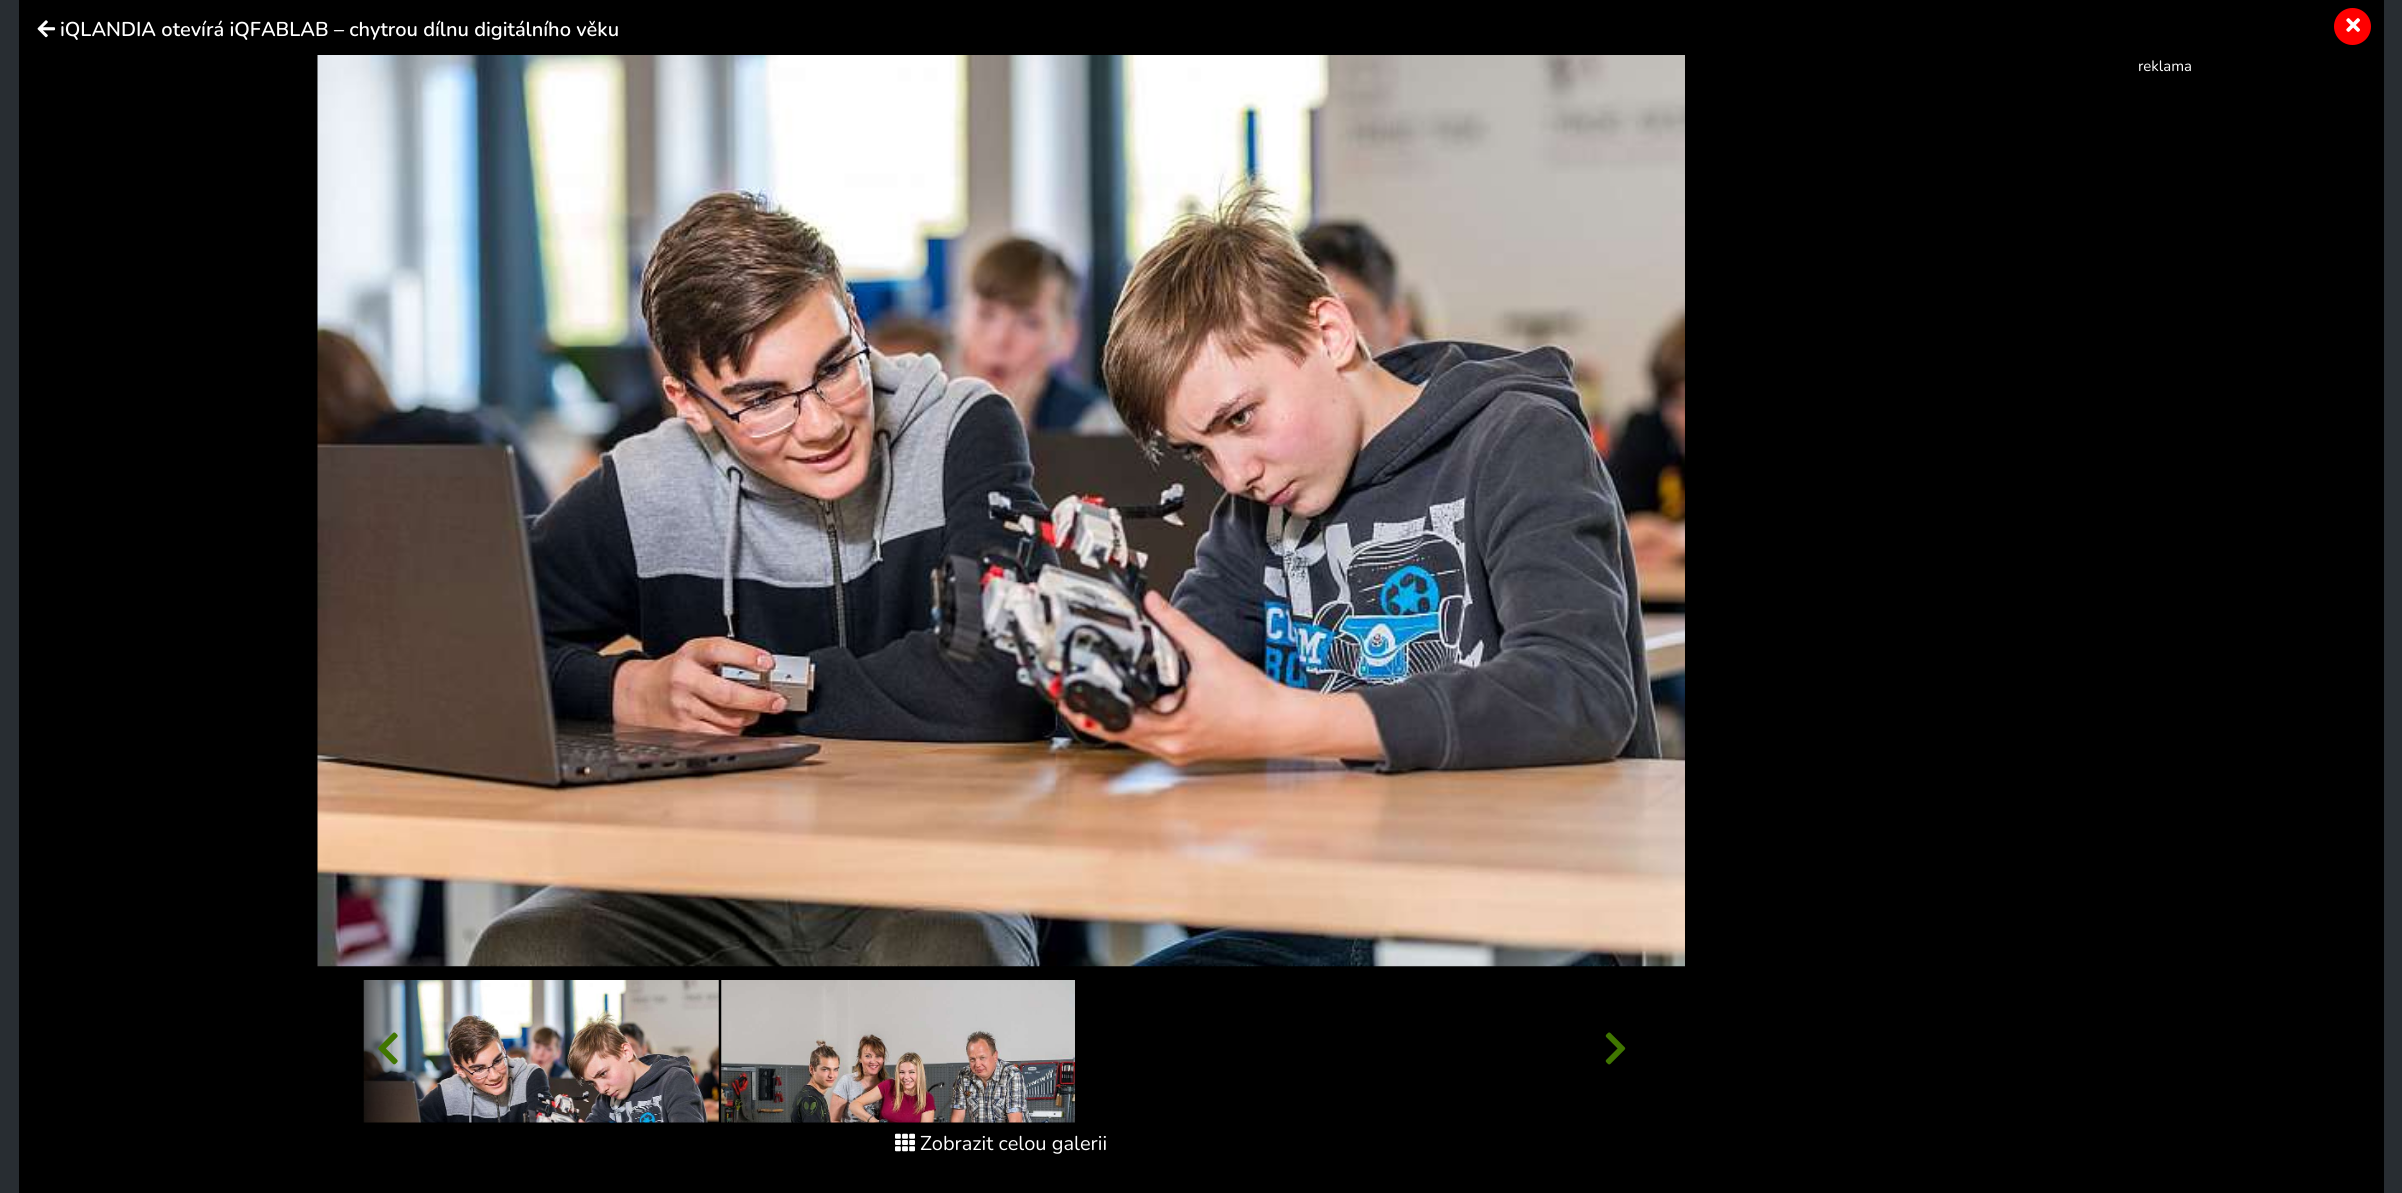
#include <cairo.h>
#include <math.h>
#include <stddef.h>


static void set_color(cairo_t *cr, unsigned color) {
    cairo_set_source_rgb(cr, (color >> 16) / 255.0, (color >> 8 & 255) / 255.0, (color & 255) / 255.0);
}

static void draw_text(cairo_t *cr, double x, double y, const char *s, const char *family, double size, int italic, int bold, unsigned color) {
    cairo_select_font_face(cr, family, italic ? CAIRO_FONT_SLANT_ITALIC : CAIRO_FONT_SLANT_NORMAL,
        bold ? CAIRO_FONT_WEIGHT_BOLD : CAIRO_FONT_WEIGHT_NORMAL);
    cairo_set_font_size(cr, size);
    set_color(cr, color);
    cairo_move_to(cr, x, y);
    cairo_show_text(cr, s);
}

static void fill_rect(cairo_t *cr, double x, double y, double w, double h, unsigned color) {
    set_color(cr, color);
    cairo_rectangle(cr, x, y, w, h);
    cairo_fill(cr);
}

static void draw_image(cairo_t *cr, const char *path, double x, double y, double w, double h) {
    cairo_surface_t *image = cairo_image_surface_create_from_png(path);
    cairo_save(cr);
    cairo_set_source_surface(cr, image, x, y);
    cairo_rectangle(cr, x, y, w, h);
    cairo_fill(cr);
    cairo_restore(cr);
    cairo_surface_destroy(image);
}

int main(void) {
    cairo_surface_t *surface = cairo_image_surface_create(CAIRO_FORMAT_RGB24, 2402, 1193);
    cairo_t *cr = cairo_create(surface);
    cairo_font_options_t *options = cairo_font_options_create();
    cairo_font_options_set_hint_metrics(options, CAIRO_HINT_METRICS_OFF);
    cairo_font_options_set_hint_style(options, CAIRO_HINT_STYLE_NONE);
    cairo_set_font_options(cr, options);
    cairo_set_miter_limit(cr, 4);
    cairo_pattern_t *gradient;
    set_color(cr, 0x282D32);
    cairo_paint(cr);
    fill_rect(cr, 19, 0, 2365, 1193, 0x000000);
    draw_image(cr, "assets/img1.png", 37, 20, 19, 18);
    draw_text(cr, 60, 36, "iQLANDIA otevírá iQFABLAB – chytrou dílnu digitálního věku", "Nunito SemiBold", 20, 0, 0, 0xFFFFFF);
    set_color(cr, 0xFF0000);
    cairo_new_path(cr);
    cairo_arc(cr, 2352.5, 26.5, 18.5, 0, 2 * M_PI);
    cairo_fill(cr);
    draw_image(cr, "assets/img2.png", 2346, 18, 14, 14);
    draw_text(cr, 2138, 71, "reklama", "Nunito", 15, 0, 0, 0xFFFFFF);
    draw_image(cr, "assets/img3.png", 317, 55, 1368, 912);
    draw_image(cr, "assets/img4.png", 363, 980, 356, 143);
    draw_image(cr, "assets/img5.png", 721, 980, 354, 143);
    gradient = cairo_pattern_create_linear(363, 1051, 413, 1051);
    cairo_pattern_add_color_stop_rgba(gradient, 0, 0, 0, 0, 0.65);
    cairo_pattern_add_color_stop_rgba(gradient, 1, 0, 0, 0, 0);
    cairo_set_source(cr, gradient);
    cairo_pattern_destroy(gradient);
    cairo_rectangle(cr, 363, 980, 48, 143);
    cairo_fill(cr);
    draw_image(cr, "assets/img6.png", 378, 1032, 20, 33);
    draw_image(cr, "assets/img7.png", 1605, 1032, 21, 33);
    draw_image(cr, "assets/img8.png", 895, 1133, 20, 19);
    draw_text(cr, 920, 1150, "Zobrazit celou galerii", "Nunito", 20, 0, 0, 0xFFFFFF);
    cairo_surface_write_to_png(surface, "output.png");
    cairo_font_options_destroy(options);
    cairo_destroy(cr);
    cairo_surface_destroy(surface);
    return 0;
}
